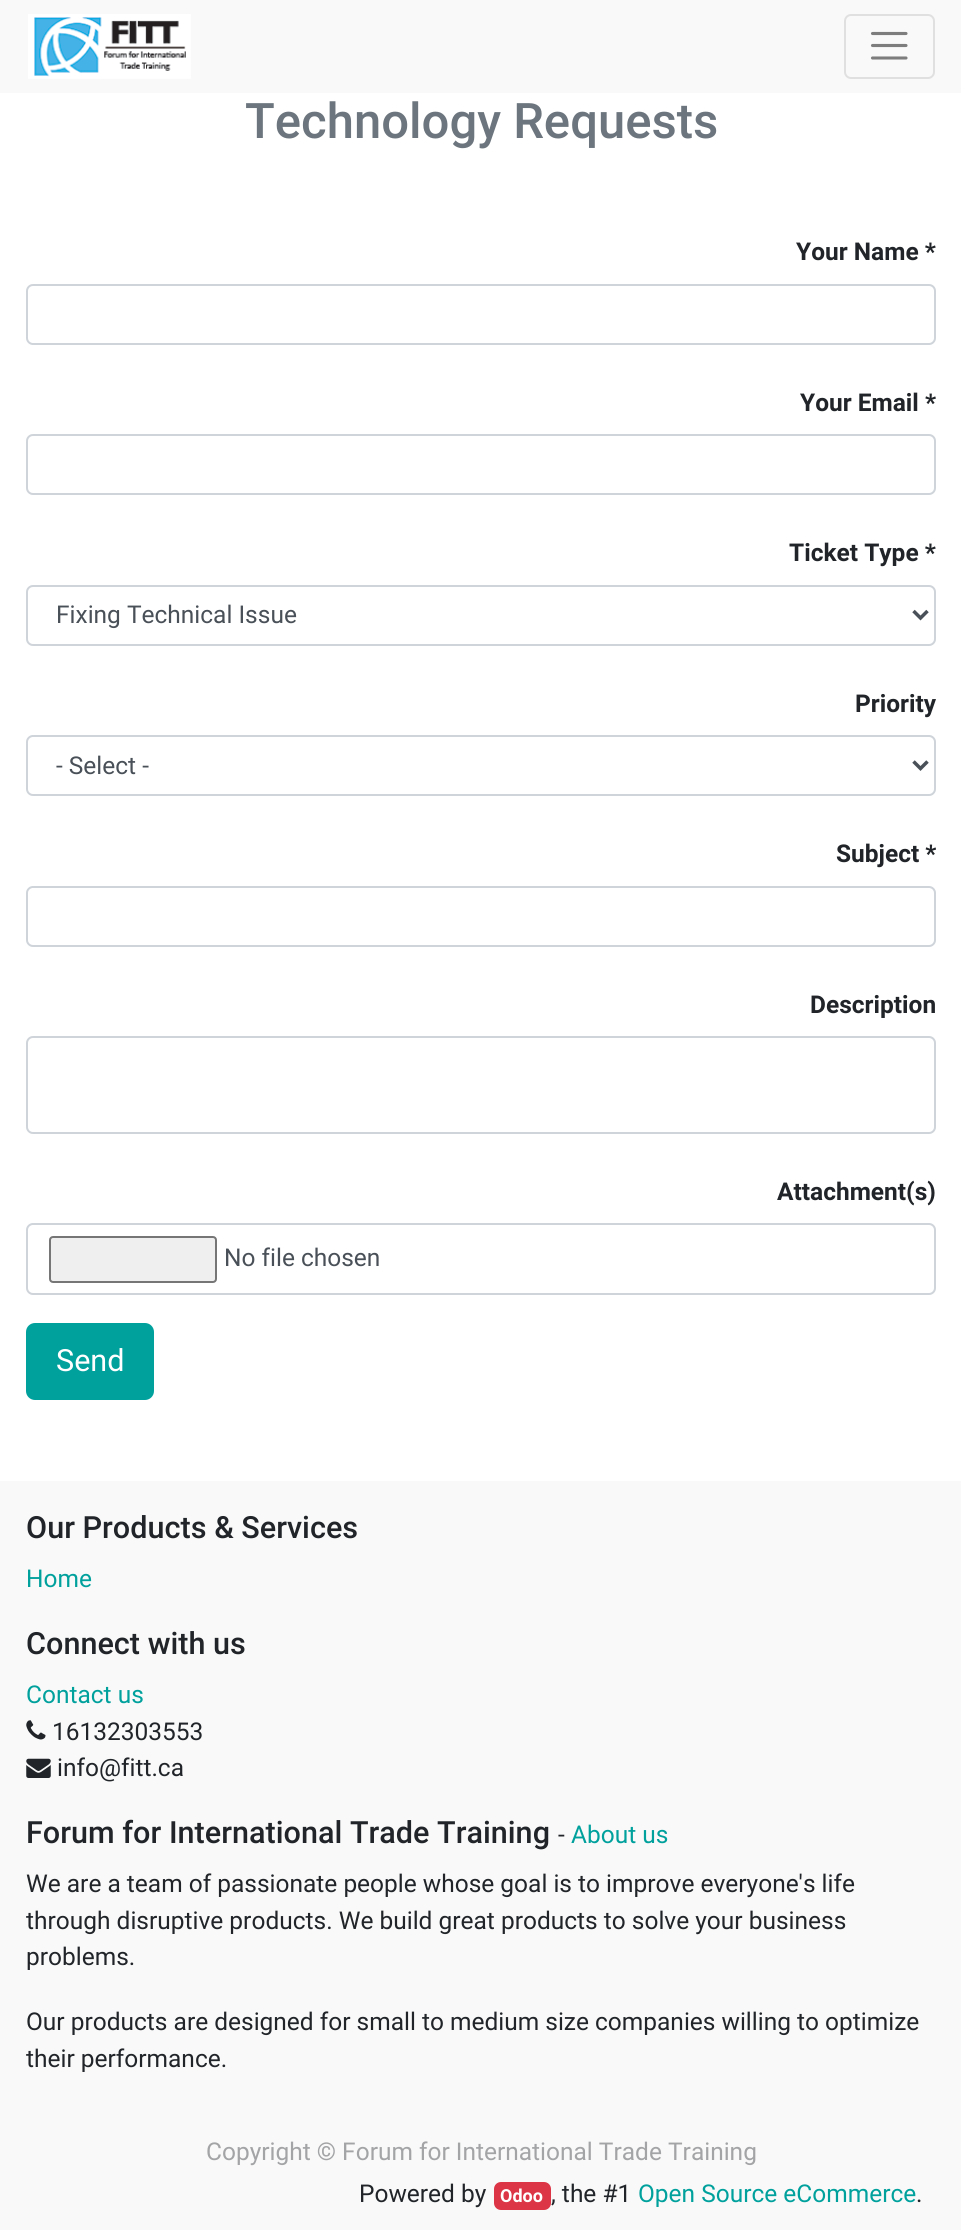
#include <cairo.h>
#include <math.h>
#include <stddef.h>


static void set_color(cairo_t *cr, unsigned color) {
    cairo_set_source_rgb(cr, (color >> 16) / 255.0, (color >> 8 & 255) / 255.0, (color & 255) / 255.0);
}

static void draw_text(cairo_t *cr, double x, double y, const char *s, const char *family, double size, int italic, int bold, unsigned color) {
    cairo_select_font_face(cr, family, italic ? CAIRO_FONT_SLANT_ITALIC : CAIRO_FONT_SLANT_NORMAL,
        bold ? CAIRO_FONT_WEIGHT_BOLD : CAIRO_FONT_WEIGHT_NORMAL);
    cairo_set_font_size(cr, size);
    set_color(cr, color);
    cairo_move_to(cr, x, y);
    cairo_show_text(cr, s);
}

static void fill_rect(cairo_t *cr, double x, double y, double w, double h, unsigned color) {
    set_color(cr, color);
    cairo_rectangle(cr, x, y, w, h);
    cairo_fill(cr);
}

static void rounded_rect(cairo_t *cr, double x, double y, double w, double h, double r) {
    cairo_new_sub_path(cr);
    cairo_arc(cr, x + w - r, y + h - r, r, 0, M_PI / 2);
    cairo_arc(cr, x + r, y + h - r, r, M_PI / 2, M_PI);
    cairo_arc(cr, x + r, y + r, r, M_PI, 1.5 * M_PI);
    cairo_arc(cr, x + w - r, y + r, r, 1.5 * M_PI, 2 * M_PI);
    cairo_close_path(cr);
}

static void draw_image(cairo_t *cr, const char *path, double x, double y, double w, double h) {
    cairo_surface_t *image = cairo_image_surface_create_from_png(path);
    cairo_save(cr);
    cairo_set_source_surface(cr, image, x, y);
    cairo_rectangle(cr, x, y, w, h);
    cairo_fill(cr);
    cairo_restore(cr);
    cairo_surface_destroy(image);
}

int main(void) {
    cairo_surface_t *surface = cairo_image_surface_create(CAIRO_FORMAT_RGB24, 961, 2230);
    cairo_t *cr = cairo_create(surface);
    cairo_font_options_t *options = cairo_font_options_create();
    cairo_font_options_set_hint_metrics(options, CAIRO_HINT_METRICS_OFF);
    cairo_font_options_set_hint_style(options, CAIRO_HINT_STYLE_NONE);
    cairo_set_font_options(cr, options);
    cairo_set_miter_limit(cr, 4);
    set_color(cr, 0xFFFFFF);
    cairo_paint(cr);
    fill_rect(cr, 0, 0, 961, 93, 0xF9F9F9);
    draw_image(cr, "assets/img1.png", 28, 14, 163, 65);
    rounded_rect(cr, 845, 15, 89, 63, 6);
    set_color(cr, 0xE0E0E0);
    cairo_stroke(cr);
    cairo_new_path(cr);
    cairo_move_to(cr, 872.5, 33.5);
    cairo_line_to(cr, 906, 33.5);
    cairo_move_to(cr, 872.5, 45.5);
    cairo_line_to(cr, 906, 45.5);
    cairo_move_to(cr, 872.5, 58);
    cairo_line_to(cr, 906, 58);
    set_color(cr, 0x7D7D7D);
    cairo_set_line_width(cr, 3.1);
    cairo_set_line_cap(cr, CAIRO_LINE_CAP_ROUND);
    cairo_stroke(cr);
    draw_text(cr, 245, 138, "Technology Requests", "Roboto Medium", 49, 0, 0, 0x6C757D);
    draw_text(cr, 796, 260, "Your Name *", "Roboto", 24.5, 0, 1, 0x212529);
    rounded_rect(cr, 27, 285, 908, 59, 6);
    set_color(cr, 0xCED4DA);
    cairo_set_line_width(cr, 2);
    cairo_set_line_cap(cr, CAIRO_LINE_CAP_BUTT);
    cairo_stroke(cr);
    draw_text(cr, 800, 411, "Your Email *", "Roboto", 24.5, 0, 1, 0x212529);
    rounded_rect(cr, 27, 435, 908, 59, 6);
    set_color(cr, 0xCED4DA);
    cairo_stroke(cr);
    draw_text(cr, 789, 561, "Ticket Type *", "Roboto", 24.5, 0, 1, 0x212529);
    rounded_rect(cr, 27, 586, 908, 59, 6);
    set_color(cr, 0xCED4DA);
    cairo_stroke(cr);
    cairo_new_path(cr);
    cairo_move_to(cr, 913.5, 611);
    cairo_line_to(cr, 920.5, 618);
    cairo_line_to(cr, 927.5, 611);
    set_color(cr, 0x495057);
    cairo_set_line_width(cr, 3.5);
    cairo_stroke(cr);
    draw_text(cr, 56, 623, "Fixing Technical Issue", "Roboto", 24.5, 0, 0, 0x495057);
    draw_text(cr, 855, 712, "Priority", "Roboto", 24.5, 0, 1, 0x212529);
    rounded_rect(cr, 27, 736, 908, 59, 6);
    set_color(cr, 0xCED4DA);
    cairo_set_line_width(cr, 2);
    cairo_stroke(cr);
    cairo_new_path(cr);
    cairo_move_to(cr, 913.5, 761.5);
    cairo_line_to(cr, 920.5, 768.5);
    cairo_line_to(cr, 927.5, 761.5);
    set_color(cr, 0x495057);
    cairo_set_line_width(cr, 3.5);
    cairo_stroke(cr);
    draw_text(cr, 56, 774, "- Select -", "Roboto", 24.5, 0, 0, 0x495057);
    draw_text(cr, 836, 862, "Subject *", "Roboto", 24.5, 0, 1, 0x212529);
    rounded_rect(cr, 27, 887, 908, 59, 6);
    set_color(cr, 0xCED4DA);
    cairo_set_line_width(cr, 2);
    cairo_stroke(cr);
    draw_text(cr, 810, 1013, "Description", "Roboto", 24.5, 0, 1, 0x212529);
    rounded_rect(cr, 27, 1037, 908, 96, 6);
    set_color(cr, 0xCED4DA);
    cairo_stroke(cr);
    draw_text(cr, 777, 1200, "Attachment(s)", "Roboto", 24.5, 0, 1, 0x212529);
    rounded_rect(cr, 27, 1224, 908, 70, 6);
    set_color(cr, 0xCED4DA);
    cairo_stroke(cr);
    set_color(cr, 0xEFEFEF);
    rounded_rect(cr, 50, 1237, 166, 45, 3);
    cairo_fill_preserve(cr);
    set_color(cr, 0x767676);
    cairo_stroke(cr);
    draw_text(cr, 224, 1266, "No file chosen", "Roboto", 24.5, 0, 0, 0x495057);
    set_color(cr, 0x00A09D);
    rounded_rect(cr, 27, 1324, 126, 75, 8);
    cairo_fill_preserve(cr);
    cairo_stroke(cr);
    draw_text(cr, 56, 1371, "Send", "Roboto", 30.6, 0, 0, 0xFFFFFF);
    fill_rect(cr, 0, 1481, 961, 749, 0xF9F9F9);
    draw_text(cr, 26, 1538, "Our Products & Services", "Roboto Medium", 30.6, 0, 0, 0x212529);
    draw_text(cr, 26, 1587, "Home", "Roboto", 24.5, 0, 0, 0x00A09D);
    draw_text(cr, 26, 1654, "Connect with us", "Roboto Medium", 30.6, 0, 0, 0x212529);
    draw_text(cr, 26, 1703, "Contact us", "Roboto", 24.5, 0, 0, 0x00A09D);
    draw_image(cr, "assets/img2.png", 26, 1720, 20, 20);
    draw_text(cr, 52, 1740, "16132303553", "Roboto", 24.5, 0, 0, 0x212529);
    draw_image(cr, "assets/img3.png", 26, 1758, 25, 20);
    draw_text(cr, 57, 1776, "info@fitt.ca", "Roboto", 24.5, 0, 0, 0x212529);
    draw_text(cr, 26, 1843, "Forum for International Trade Training", "Roboto Medium", 30.6, 0, 0, 0x212529);
    draw_text(cr, 558, 1843, "-", "Roboto", 24.5, 0, 0, 0x212529);
    draw_text(cr, 571, 1843, "About us", "Roboto", 24.5, 0, 0, 0x00A09D);
    draw_text(cr, 26, 1892, "We are a team of passionate people whose goal is to improve everyone's life", "Roboto", 24.5, 0, 0, 0x212529);
    draw_text(cr, 26, 1929, "through disruptive products. We build great products to solve your business", "Roboto", 24.5, 0, 0, 0x212529);
    draw_text(cr, 26, 1965, "problems.", "Roboto", 24.5, 0, 0, 0x212529);
    draw_text(cr, 26, 2030, "Our products are designed for small to medium size companies willing to optimize", "Roboto", 24.5, 0, 0, 0x212529);
    draw_text(cr, 26, 2067, "their performance.", "Roboto", 24.5, 0, 0, 0x212529);
    draw_text(cr, 206, 2160, "Copyright © Forum for International Trade Training", "Roboto", 24.5, 0, 0, 0xA3A4A6);
    draw_text(cr, 359, 2202, "Powered by", "Roboto", 24.5, 0, 0, 0x212529);
    set_color(cr, 0xDC3545);
    rounded_rect(cr, 494, 2182, 57, 28, 7);
    cairo_fill(cr);
    draw_text(cr, 500, 2202, "Odoo", "Roboto", 18, 0, 1, 0xFFFFFF);
    draw_text(cr, 551, 2202, ", the #1", "Roboto", 24.5, 0, 0, 0x212529);
    draw_text(cr, 638, 2202, "Open Source eCommerce", "Roboto", 24.5, 0, 0, 0x00A09D);
    draw_text(cr, 916, 2202, ".", "Roboto", 24.5, 0, 0, 0x212529);
    cairo_surface_write_to_png(surface, "output.png");
    cairo_font_options_destroy(options);
    cairo_destroy(cr);
    cairo_surface_destroy(surface);
    return 0;
}
